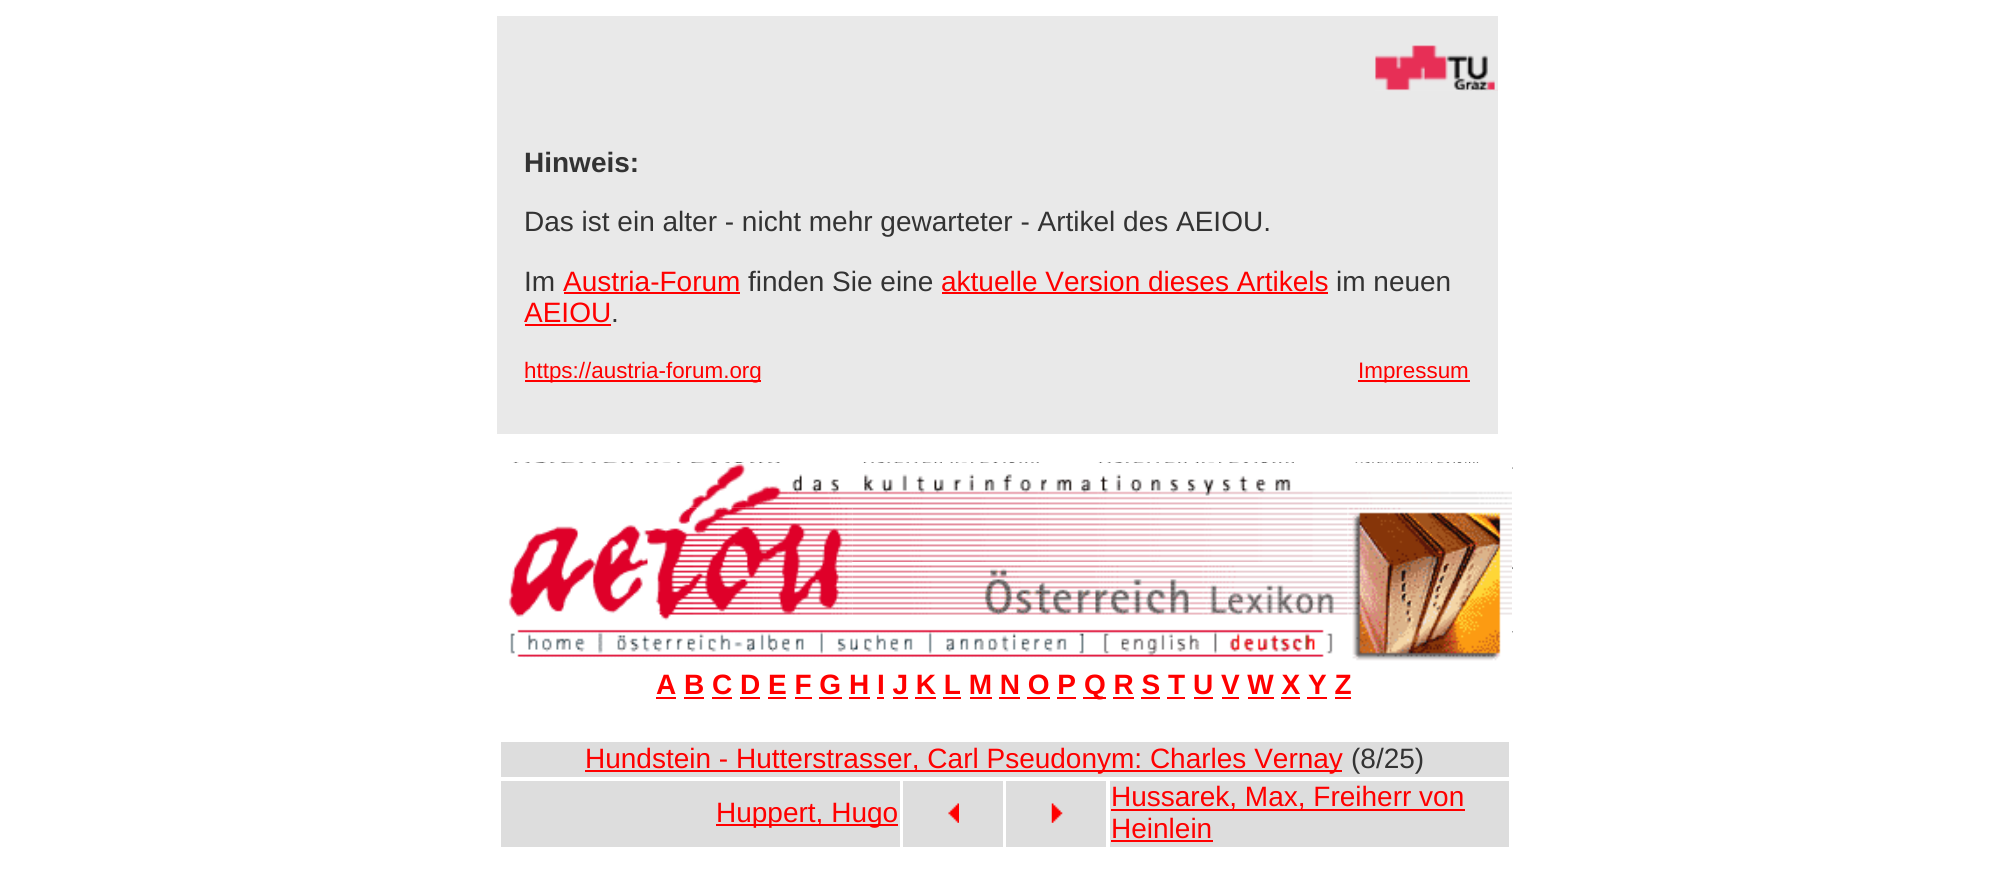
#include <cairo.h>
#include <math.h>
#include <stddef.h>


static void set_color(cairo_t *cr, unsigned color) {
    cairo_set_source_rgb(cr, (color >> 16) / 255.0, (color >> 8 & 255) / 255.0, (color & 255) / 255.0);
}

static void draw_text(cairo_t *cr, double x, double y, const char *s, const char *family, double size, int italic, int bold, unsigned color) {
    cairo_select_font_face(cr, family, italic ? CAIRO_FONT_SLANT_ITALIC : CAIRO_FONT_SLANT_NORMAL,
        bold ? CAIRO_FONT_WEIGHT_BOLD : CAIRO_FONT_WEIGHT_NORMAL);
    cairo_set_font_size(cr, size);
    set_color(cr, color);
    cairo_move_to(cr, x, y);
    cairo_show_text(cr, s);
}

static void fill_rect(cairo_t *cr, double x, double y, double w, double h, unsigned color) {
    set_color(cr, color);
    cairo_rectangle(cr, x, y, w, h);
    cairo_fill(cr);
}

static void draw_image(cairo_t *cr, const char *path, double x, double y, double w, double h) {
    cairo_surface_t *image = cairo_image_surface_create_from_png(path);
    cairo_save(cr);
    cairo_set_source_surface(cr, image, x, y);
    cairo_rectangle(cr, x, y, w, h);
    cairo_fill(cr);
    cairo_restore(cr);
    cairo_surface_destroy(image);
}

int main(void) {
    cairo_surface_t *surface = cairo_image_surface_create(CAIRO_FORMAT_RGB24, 2009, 887);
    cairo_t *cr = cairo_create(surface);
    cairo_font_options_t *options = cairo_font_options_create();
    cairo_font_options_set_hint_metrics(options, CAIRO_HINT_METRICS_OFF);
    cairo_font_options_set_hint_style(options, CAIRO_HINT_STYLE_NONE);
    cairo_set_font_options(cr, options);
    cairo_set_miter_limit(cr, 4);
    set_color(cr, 0xFFFFFF);
    cairo_paint(cr);
    fill_rect(cr, 497, 16, 1001, 418, 0xE9E9E9);
    draw_image(cr, "assets/img1.png", 1375, 45, 123, 46);
    draw_text(cr, 524, 172, "Hinweis:", "Liberation Sans", 28, 0, 1, 0x333333);
    draw_text(cr, 524, 231, "Das ist ein alter - nicht mehr gewarteter - Artikel des AEIOU.", "Liberation Sans", 28, 0, 0, 0x333333);
    draw_text(cr, 524, 291, "Im", "Liberation Sans", 28, 0, 0, 0x333333);
    draw_text(cr, 563, 291, "Austria-Forum", "Liberation Sans", 28, 0, 0, 0xFF0000);
    fill_rect(cr, 564, 292, 176, 2, 0xFF0000);
    draw_text(cr, 748, 291, "finden Sie eine", "Liberation Sans", 28, 0, 0, 0x333333);
    draw_text(cr, 941, 291, "aktuelle Version dieses Artikels", "Liberation Sans", 28, 0, 0, 0xFF0000);
    fill_rect(cr, 942, 292, 386, 2, 0xFF0000);
    draw_text(cr, 1336, 291, "im neuen", "Liberation Sans", 28, 0, 0, 0x333333);
    draw_text(cr, 524, 322, "AEIOU", "Liberation Sans", 28, 0, 0, 0xFF0000);
    fill_rect(cr, 525, 324, 86, 2, 0xFF0000);
    draw_text(cr, 611, 322, ".", "Liberation Sans", 28, 0, 0, 0x333333);
    fill_rect(cr, 525, 380, 236, 2, 0xFF0000);
    draw_text(cr, 524, 378, "https://austria-forum.org", "Liberation Sans", 22.4, 0, 0, 0xFF0000);
    fill_rect(cr, 1358, 380, 112, 2, 0xFF0000);
    draw_text(cr, 1358, 378, "Impressum", "Liberation Sans", 22.4, 0, 0, 0xFF0000);
    draw_image(cr, "assets/img2.png", 513, 462, 267, 1);
    draw_image(cr, "assets/img3.png", 863, 462, 176, 1);
    draw_image(cr, "assets/img4.png", 1098, 462, 196, 1);
    draw_image(cr, "assets/img5.png", 1355, 462, 124, 1);
    draw_image(cr, "assets/img6.png", 689, 464, 823, 44);
    draw_image(cr, "assets/img7.png", 1512, 467, 1, 2);
    draw_image(cr, "assets/img8.png", 508, 507, 345, 114);
    draw_image(cr, "assets/img9.png", 852, 507, 496, 55);
    draw_image(cr, "assets/img10.png", 1347, 507, 165, 154);
    draw_image(cr, "assets/img11.png", 852, 562, 496, 53);
    draw_image(cr, "assets/img12.png", 1512, 566, 1, 4);
    draw_image(cr, "assets/img13.png", 510, 629, 823, 29);
    draw_image(cr, "assets/img14.png", 1512, 631, 1, 2);
    draw_text(cr, 656, 694, "A B C D E F G H I J K L M N O P", "Liberation Sans", 28, 0, 1, 0xFF0000);
    fill_rect(cr, 656, 697, 20, 2, 0xFF0000);
    fill_rect(cr, 684, 697, 20, 2, 0xFF0000);
    fill_rect(cr, 712, 697, 20, 2, 0xFF0000);
    fill_rect(cr, 740, 697, 20, 2, 0xFF0000);
    fill_rect(cr, 768, 697, 18, 2, 0xFF0000);
    fill_rect(cr, 795, 697, 17, 2, 0xFF0000);
    fill_rect(cr, 819, 697, 23, 2, 0xFF0000);
    fill_rect(cr, 849, 697, 21, 2, 0xFF0000);
    fill_rect(cr, 877, 697, 7, 2, 0xFF0000);
    fill_rect(cr, 893, 697, 15, 2, 0xFF0000);
    fill_rect(cr, 915, 697, 21, 2, 0xFF0000);
    fill_rect(cr, 943, 697, 18, 2, 0xFF0000);
    fill_rect(cr, 970, 697, 22, 2, 0xFF0000);
    fill_rect(cr, 999, 697, 21, 2, 0xFF0000);
    fill_rect(cr, 1027, 697, 23, 2, 0xFF0000);
    fill_rect(cr, 1057, 697, 19, 2, 0xFF0000);
    fill_rect(cr, 1083, 697, 23, 2, 0xFF0000);
    draw_text(cr, 1084, 694, "Q R S T U V W X Y Z", "Liberation Sans", 28, 0, 1, 0xFF0000);
    fill_rect(cr, 1113, 697, 21, 2, 0xFF0000);
    fill_rect(cr, 1141, 697, 19, 2, 0xFF0000);
    fill_rect(cr, 1167, 697, 18, 2, 0xFF0000);
    fill_rect(cr, 1194, 697, 19, 2, 0xFF0000);
    fill_rect(cr, 1222, 697, 17, 2, 0xFF0000);
    fill_rect(cr, 1248, 697, 26, 2, 0xFF0000);
    fill_rect(cr, 1281, 697, 19, 2, 0xFF0000);
    fill_rect(cr, 1307, 697, 20, 2, 0xFF0000);
    fill_rect(cr, 1335, 697, 16, 2, 0xFF0000);
    fill_rect(cr, 501, 742, 1008, 35, 0xDDDDDD);
    fill_rect(cr, 585, 770, 757, 2, 0xFF0000);
    draw_text(cr, 585, 768, "Hundstein - Hutterstrasser, Carl Pseudonym: Charles Vernay", "Liberation Sans", 28, 0, 0, 0xFF0000);
    draw_text(cr, 1351, 768, "(8/25)", "Liberation Sans", 28, 0, 0, 0x333333);
    fill_rect(cr, 501, 781, 399, 66, 0xDDDDDD);
    fill_rect(cr, 716, 824, 182, 2, 0xFF0000);
    draw_text(cr, 716, 822, "Huppert, Hugo", "Liberation Sans", 28, 0, 0, 0xFF0000);
    fill_rect(cr, 903, 781, 100, 66, 0xDDDDDD);
    draw_image(cr, "assets/img15.png", 948, 803, 11, 20);
    fill_rect(cr, 1006, 781, 100, 66, 0xDDDDDD);
    draw_image(cr, "assets/img16.png", 1051, 803, 12, 20);
    fill_rect(cr, 1110, 781, 399, 66, 0xDDDDDD);
    fill_rect(cr, 1111, 809, 354, 2, 0xFF0000);
    draw_text(cr, 1111, 806, "Hussarek, Max, Freiherr von", "Liberation Sans", 28, 0, 0, 0xFF0000);
    draw_text(cr, 1111, 838, "Heinlein", "Liberation Sans", 28, 0, 0, 0xFF0000);
    fill_rect(cr, 1111, 840, 102, 2, 0xFF0000);
    cairo_surface_write_to_png(surface, "output.png");
    cairo_font_options_destroy(options);
    cairo_destroy(cr);
    cairo_surface_destroy(surface);
    return 0;
}
